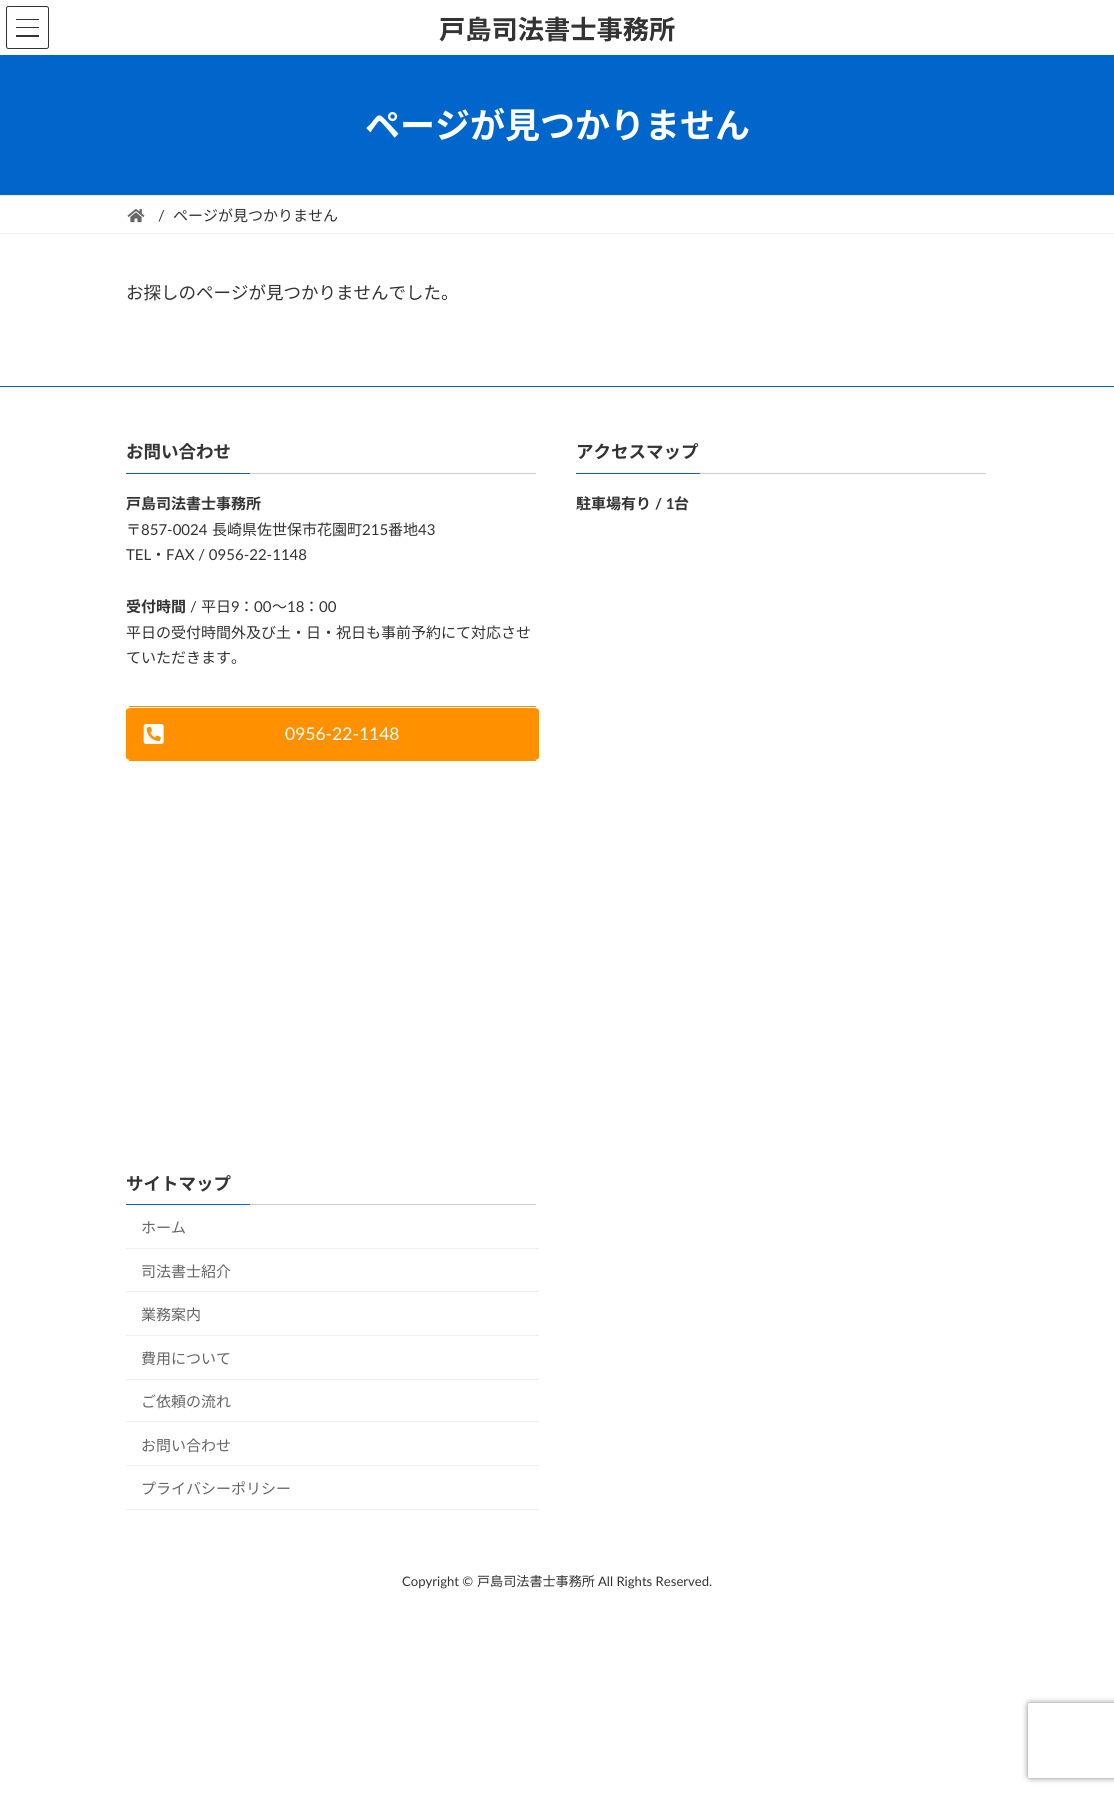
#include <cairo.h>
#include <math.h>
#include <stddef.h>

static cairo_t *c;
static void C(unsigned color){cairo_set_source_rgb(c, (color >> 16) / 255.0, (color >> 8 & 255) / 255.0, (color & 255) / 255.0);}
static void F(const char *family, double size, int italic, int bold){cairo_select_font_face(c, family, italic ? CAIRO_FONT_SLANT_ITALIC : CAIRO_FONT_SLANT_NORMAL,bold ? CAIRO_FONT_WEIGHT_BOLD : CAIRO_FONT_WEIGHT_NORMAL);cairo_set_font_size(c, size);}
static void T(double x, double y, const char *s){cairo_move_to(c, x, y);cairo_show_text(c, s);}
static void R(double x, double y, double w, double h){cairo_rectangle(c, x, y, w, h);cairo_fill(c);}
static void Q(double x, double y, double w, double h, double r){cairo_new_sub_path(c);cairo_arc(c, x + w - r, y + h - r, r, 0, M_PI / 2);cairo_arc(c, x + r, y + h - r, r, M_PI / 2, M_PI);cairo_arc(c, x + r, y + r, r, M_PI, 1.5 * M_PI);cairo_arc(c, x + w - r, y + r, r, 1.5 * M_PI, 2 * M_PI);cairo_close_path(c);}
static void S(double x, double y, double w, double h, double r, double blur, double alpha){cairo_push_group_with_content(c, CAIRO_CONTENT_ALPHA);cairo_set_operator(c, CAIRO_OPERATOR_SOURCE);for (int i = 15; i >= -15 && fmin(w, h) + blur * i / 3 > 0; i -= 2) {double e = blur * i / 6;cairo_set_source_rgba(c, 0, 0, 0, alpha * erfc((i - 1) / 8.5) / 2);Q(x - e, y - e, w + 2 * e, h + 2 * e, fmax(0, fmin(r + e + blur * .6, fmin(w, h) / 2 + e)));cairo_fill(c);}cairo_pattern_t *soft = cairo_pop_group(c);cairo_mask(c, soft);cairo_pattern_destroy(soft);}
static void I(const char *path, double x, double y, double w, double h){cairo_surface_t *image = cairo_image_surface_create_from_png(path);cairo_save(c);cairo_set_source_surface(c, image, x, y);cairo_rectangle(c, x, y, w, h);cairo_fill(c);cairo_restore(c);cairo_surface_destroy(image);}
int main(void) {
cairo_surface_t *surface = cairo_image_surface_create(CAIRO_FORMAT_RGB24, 1114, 1795);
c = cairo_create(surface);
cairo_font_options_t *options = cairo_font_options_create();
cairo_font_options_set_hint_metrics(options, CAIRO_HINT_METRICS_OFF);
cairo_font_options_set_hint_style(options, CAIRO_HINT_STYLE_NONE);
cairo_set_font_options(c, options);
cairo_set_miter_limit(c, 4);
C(0xffffff);
cairo_paint(c);
C(0x333333);
R(16,19,23,1);
R(16,27,23,1);
R(16,35,23,2);
Q(6.5,6.5,42,42,2);
cairo_set_line_width(c,1);
cairo_stroke(c);
F("Noto Sans JP",26.25,0,1);
T(439,39,"戸島司法書士事務所");
C(0x0066cc);
R(0,55,1114,140);
F("Noto Sans JP",35,0,1);
C(0xffffff);
T(365,138,"ページが見つかりません");
C(0xf0f0f0);
R(0,195,1114,1);
R(0,233,1114,1);
I("1.png",127,209,18,14);
F("Lato",15,0,0);
C(0x333333);
T(158,221,"/");
F("Noto Sans JP",15,0,0);
T(173,221,"ページが見つかりません");
F("Noto Sans JP",17.5,0,0);
T(126,299,"お探しのページが見つかりませんでした。");
C(0x0066cc);
R(0,386,1114,1);
C(0xcccccc);
R(250,473,286,1);
F("Noto Sans JP",17.5,0,1);
C(0x333333);
T(126,458,"お問い合わせ");
C(0x0066cc);
R(126,473,124,1);
F("Noto Sans JP",15,0,1);
C(0x333333);
T(126,509,"戸島司法書士事務所");
F("Noto Sans JP",15,0,0);
T(126,535,"〒");
F("Lato",15,0,0);
T(141,535,"857-0024");
F("Noto Sans JP",15,0,0);
T(212,535,"長崎県佐世保市花園町");
F("Lato",15,0,0);
T(362,535,"215");
F("Noto Sans JP",15,0,0);
T(388,535,"番地");
F("Lato",15,0,0);
T(418,535,"43");
T(126,560,"TEL");
F("Noto Sans JP",15,0,0);
T(151,560,"・");
F("Lato",15,0,0);
T(166,560,"FAX / 0956-22-1148");
F("Noto Sans JP",15,0,1);
T(126,612,"受付時間");
F("Lato",15,0,0);
T(190,612,"/");
F("Noto Sans JP",15,0,0);
T(201,612,"平日");
F("Lato",15,0,0);
T(231,612,"9");
F("Noto Sans JP",15,0,0);
T(239,612,"：");
F("Lato",15,0,0);
T(254,612,"00");
F("Noto Sans JP",15,0,0);
T(272,612,"～");
F("Lato",15,0,0);
T(287,612,"18");
F("Noto Sans JP",15,0,0);
T(304,612,"：");
F("Lato",15,0,0);
T(319,612,"00");
F("Noto Sans JP",15,0,0);
T(126,638,"平日の受付時間外及び土・日・祝日も事前予約にて対応させ");
T(126,663,"ていただきます。");
C(0xff9000);
cairo_new_path(c);
cairo_move_to(c,131,708);
cairo_line_to(c,534,708);
cairo_curve_to(c,537,708,539,709,539,711);
cairo_line_to(c,539,757);
cairo_curve_to(c,539,759,537,760,534,760);
cairo_line_to(c,131,760);
cairo_curve_to(c,128,760,126,759,126,757);
cairo_line_to(c,126,711);
cairo_curve_to(c,126,709,128,708,131,708);
cairo_close_path(c);
cairo_fill(c);
R(129,706,407,1);
R(129,760,407,1);
I("2.png",143,724,21,20);
F("Lato",17.5,0,0);
C(0xffffff);
T(285,740,"0956-22-1148");
C(0xcccccc);
R(700,473,286,1);
F("Noto Sans JP",17.5,0,1);
C(0x333333);
T(576,458,"アクセスマップ");
C(0x0066cc);
R(576,473,124,1);
F("Noto Sans JP",15,0,1);
C(0x333333);
T(576,509,"駐車場有り");
F("Lato",15,0,1);
T(655,509,"/ 1");
F("Noto Sans JP",15,0,1);
T(674,509,"台");
C(0xcccccc);
R(250,1204,286,1);
F("Noto Sans JP",17.5,0,1);
C(0x333333);
T(126,1190,"サイトマップ");
C(0x0066cc);
R(126,1204,124,1);
C(0xf0f0f0);
R(126,1248,413,1);
F("Noto Sans JP",15,0,0);
C(0x666666);
T(141,1233,"ホーム");
C(0xf0f0f0);
R(126,1291,413,1);
C(0x666666);
T(141,1277,"司法書士紹介");
C(0xf0f0f0);
R(126,1335,413,1);
C(0x666666);
T(141,1320,"業務案内");
C(0xf0f0f0);
R(126,1379,413,1);
C(0x666666);
T(141,1364,"費用について");
C(0xf0f0f0);
R(126,1421,413,1);
C(0x666666);
T(141,1407,"ご依頼の流れ");
C(0xf0f0f0);
R(126,1465,413,1);
C(0x666666);
T(141,1451,"お問い合わせ");
C(0xf0f0f0);
R(126,1509,413,1);
C(0x666666);
T(141,1494,"プライバシーポリシー");
F("Lato",13.1,0,0);
C(0x333333);
T(402,1586,"Copyright ©");
F("Noto Sans JP",13.1,0,0);
T(477,1586,"戸島司法書士事務所");
F("Lato",13.1,0,0);
T(598,1586,"All Rights Reserved.");
cairo_save(c);
cairo_set_fill_rule(c,CAIRO_FILL_RULE_EVEN_ODD);
cairo_new_path(c);
cairo_move_to(c,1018,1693);
cairo_line_to(c,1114,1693);
cairo_line_to(c,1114,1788);
cairo_line_to(c,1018,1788);
cairo_close_path(c);
cairo_move_to(c,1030.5,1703);
cairo_line_to(c,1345.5,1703);
cairo_curve_to(c,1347,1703,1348,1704,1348,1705.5);
cairo_line_to(c,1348,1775.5);
cairo_curve_to(c,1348,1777,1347,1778,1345.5,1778);
cairo_line_to(c,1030.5,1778);
cairo_curve_to(c,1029,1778,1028,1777,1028,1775.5);
cairo_line_to(c,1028,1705.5);
cairo_curve_to(c,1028,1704,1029,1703,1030.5,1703);
cairo_close_path(c);
cairo_clip(c);
C(0x808080);
S(1028,1703,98,75,2.5,3,1);
cairo_restore(c);
cairo_surface_write_to_png(surface, "o.png");
cairo_font_options_destroy(options);
cairo_destroy(c);
cairo_surface_destroy(surface);
return 0;
}
